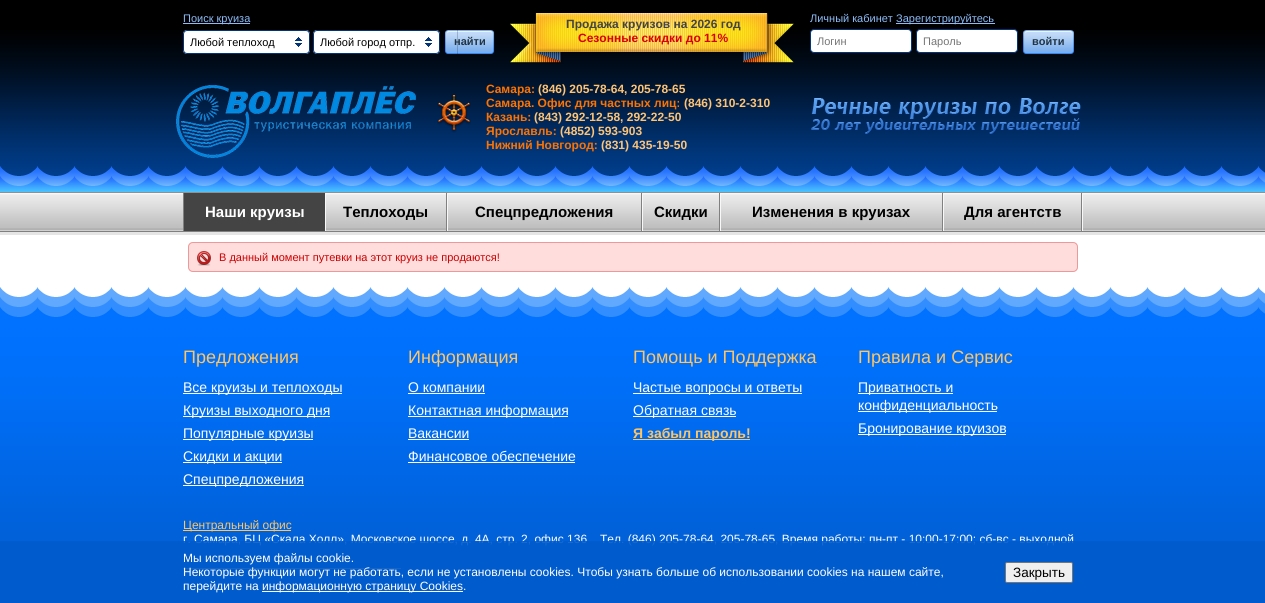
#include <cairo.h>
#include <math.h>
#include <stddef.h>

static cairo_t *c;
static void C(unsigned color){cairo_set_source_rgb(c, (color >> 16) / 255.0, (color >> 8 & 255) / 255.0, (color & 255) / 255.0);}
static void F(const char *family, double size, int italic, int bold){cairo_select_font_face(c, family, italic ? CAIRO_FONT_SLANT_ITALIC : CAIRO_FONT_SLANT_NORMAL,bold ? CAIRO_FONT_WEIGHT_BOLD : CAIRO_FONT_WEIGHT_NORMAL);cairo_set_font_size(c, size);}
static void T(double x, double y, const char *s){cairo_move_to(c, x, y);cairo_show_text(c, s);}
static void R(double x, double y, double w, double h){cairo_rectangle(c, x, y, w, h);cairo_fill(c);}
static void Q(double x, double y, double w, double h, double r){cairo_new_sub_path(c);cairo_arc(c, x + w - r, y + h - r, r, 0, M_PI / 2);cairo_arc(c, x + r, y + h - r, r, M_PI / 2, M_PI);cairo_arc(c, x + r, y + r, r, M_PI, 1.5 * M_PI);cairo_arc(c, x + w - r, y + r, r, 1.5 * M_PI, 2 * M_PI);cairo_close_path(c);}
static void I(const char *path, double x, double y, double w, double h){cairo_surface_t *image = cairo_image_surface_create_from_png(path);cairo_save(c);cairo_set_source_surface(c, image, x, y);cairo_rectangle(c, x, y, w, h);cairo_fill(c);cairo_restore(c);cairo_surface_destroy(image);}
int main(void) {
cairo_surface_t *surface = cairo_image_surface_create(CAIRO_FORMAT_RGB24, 1265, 603);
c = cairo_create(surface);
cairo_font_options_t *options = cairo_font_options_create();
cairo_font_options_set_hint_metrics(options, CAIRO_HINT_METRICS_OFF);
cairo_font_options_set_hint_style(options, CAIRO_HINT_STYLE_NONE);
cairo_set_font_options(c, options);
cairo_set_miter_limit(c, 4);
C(0xffffff);
cairo_paint(c);
I("1.png",0,0,1265,235);
C(0x8cbcf7);
R(183,23,67,1);
F("Liberation Sans",11,0,0);
T(183,22,"Поиск круиза");
C(0xffffff);
Q(183,30,127,24,4);
cairo_fill(c);
I("2.png",295,37,7,10);
Q(183.5,30.5,126,23,3.5);
C(0x003579);
cairo_set_line_width(c,1);
cairo_stroke(c);
C(0x000000);
T(190,46,"Любой теплоход");
C(0xffffff);
Q(313,30,127,24,4);
cairo_fill(c);
I("2.png",425,37,7,10);
Q(313.5,30.5,126,23,3.5);
C(0x003579);
cairo_stroke(c);
C(0x000000);
T(320,46,"Любой город отпр.");
I("3.png",458,30,37,25);
I("4.png",445,30,13,25);
F("Liberation Sans",11,0,1);
C(0x223344);
T(454,45,"найти");
I("5.png",510,13,284,51);
F("Liberation Sans",12,0,1);
C(0x444444);
T(566,28,"Продажа круизов на 2026 год");
C(0xdb0000);
T(578,42,"Сезонные скидки до 11%");
F("Liberation Sans",11,0,0);
C(0x8cbcf7);
T(810,22,"Личный кабинет");
R(896,23,99,1);
T(896,22,"Зарегистрируйтесь");
C(0xffffff);
Q(810.5,29.5,101,23,3.5);
cairo_fill_preserve(c);
C(0x003579);
cairo_stroke(c);
C(0x757575);
T(817,45,"Логин");
C(0xffffff);
Q(916.5,29.5,101,23,3.5);
cairo_fill_preserve(c);
C(0x003579);
cairo_stroke(c);
C(0x757575);
T(923,45,"Пароль");
I("6.png",1036,30,38,25);
I("7.png",1023,30,13,25);
F("Liberation Sans",11,0,1);
C(0x223344);
T(1032,45,"войти");
I("8.png",176,85,240,73);
I("9.png",437,95,34,38);
F("Liberation Sans",12,0,1);
C(0xfe7300);
T(486,93,"Самара:");
C(0xffc374);
T(538,93,"(846) 205-78-64, 205-78-65");
C(0xfe7300);
T(486,107,"Самара. Офис для частных лиц:");
C(0xffc374);
T(684,107,"(846) 310-2-310");
C(0xfe7300);
T(486,121,"Казань:");
C(0xffc374);
T(534,121,"(843) 292-12-58, 292-22-50");
C(0xfe7300);
T(486,135,"Ярославль:");
C(0xffc374);
T(560,135,"(4852) 593-903");
C(0xfe7300);
T(486,149,"Нижний Новгород:");
C(0xffc374);
T(601,149,"(831) 435-19-50");
I("10.png",811,97,271,37);
C(0xf8f8f8);
R(1082,193,1,38);
C(0x808080);
R(183,193,1,38);
C(0x444444);
R(184,193,141,38);
F("Liberation Sans",15,0,1);
C(0xffffff);
T(205,217,"Наши круизы");
C(0x808080);
R(446,193,1,38);
C(0xf8f8f8);
R(325,193,1,38);
C(0x000000);
T(343,217,"Теплоходы");
C(0x808080);
R(641,193,1,38);
C(0xf8f8f8);
R(447,193,1,38);
C(0x000000);
T(475,217,"Спецпредложения");
C(0x808080);
R(719,193,1,38);
C(0xf8f8f8);
R(642,193,1,38);
C(0x000000);
T(654,217,"Скидки");
C(0x808080);
R(942,193,1,38);
C(0xf8f8f8);
R(720,193,1,38);
C(0x000000);
T(752,217,"Изменения в круизах");
C(0x808080);
R(1081,193,1,38);
C(0xf8f8f8);
R(943,193,1,38);
C(0x000000);
T(964,217,"Для агентств");
C(0xffdddd);
Q(188,242,890,30,5);
cairo_fill(c);
I("11.png",197,251,14,15);
Q(188.5,242.5,889,29,4.5);
C(0xee9999);
cairo_stroke(c);
F("Liberation Sans",11,0,0);
C(0xcc0000);
T(219,261,"В данный момент путевки на этот круиз не продаются!");
I("12.png",0,287,1265,316);
F("Liberation Sans",18,0,0);
C(0xffc563);
T(183,363,"Предложения");
C(0xffffff);
R(183,393,159,1);
F("Liberation Sans",14,0,0);
T(183,392,"Все круизы и теплоходы");
R(183,416,147,1);
T(183,415,"Круизы выходного дня");
R(183,439,130,1);
T(183,438,"Популярные круизы");
R(183,462,99,1);
T(183,461,"Скидки и акции");
R(183,485,121,1);
T(183,484,"Спецпредложения");
F("Liberation Sans",18,0,0);
C(0xffc563);
T(408,363,"Информация");
F("Liberation Sans",14,0,0);
C(0xffffff);
T(408,392,"О компании");
R(408,393,77,1);
R(408,416,160,1);
T(408,415,"Контактная информация");
T(408,438,"Вакансии");
R(408,439,61,1);
T(408,461,"Финансовое обеспечение");
R(408,462,167,1);
F("Liberation Sans",18,0,0);
C(0xffc563);
T(633,363,"Помощь и Поддержка");
C(0xffffff);
R(633,393,169,1);
F("Liberation Sans",14,0,0);
T(633,392,"Частые вопросы и ответы");
R(633,416,103,1);
T(633,415,"Обратная связь");
C(0xffc563);
R(633,439,117,1);
F("Liberation Sans",14,0,1);
T(633,438,"Я забыл пароль!");
F("Liberation Sans",18,0,0);
T(858,363,"Правила и Сервис");
C(0xffffff);
R(858,393,95,1);
F("Liberation Sans",14,0,0);
T(858,392,"Приватность и");
R(858,411,139,1);
T(858,410,"конфиденциальность");
R(858,434,148,1);
T(858,433,"Бронирование круизов");
C(0xffc563);
R(183,530,108,1);
F("Liberation Sans",12,0,0);
T(183,529,"Центральный офис");
C(0xffffff);
T(183,543,"г. Самара, БЦ «Скала Холл», Московское шоссе, д. 4А, стр. 2, офис 136");
T(600,543,"Тел. (846) 205-78-64, 205-78-65, Время работы: пн-пт - 10:00-17:00; сб-вс - выходной");
C(0xffc563);
R(183,568,218,1);
cairo_set_source_rgba(c,0,0.357,0.8,0.9);
R(0,541,1265,59);
C(0xffffff);
T(183,562,"Мы используем файлы cookie.");
T(183,576,"Некоторые функции могут не работать, если не установлены cookies. Чтобы узнать больше об использовании cookies на нашем сайте,");
T(183,590,"перейдите на");
R(262,591,201,1);
T(262,590,"информационную страницу Cookies.");
C(0xefefef);
Q(1005.5,562.5,67,20,1.5);
cairo_fill_preserve(c);
C(0x767676);
cairo_stroke(c);
F("Liberation Sans",13.5,0,0);
C(0x000000);
T(1013,577,"Закрыть");
cairo_surface_write_to_png(surface, "o.png");
cairo_font_options_destroy(options);
cairo_destroy(c);
cairo_surface_destroy(surface);
return 0;
}
